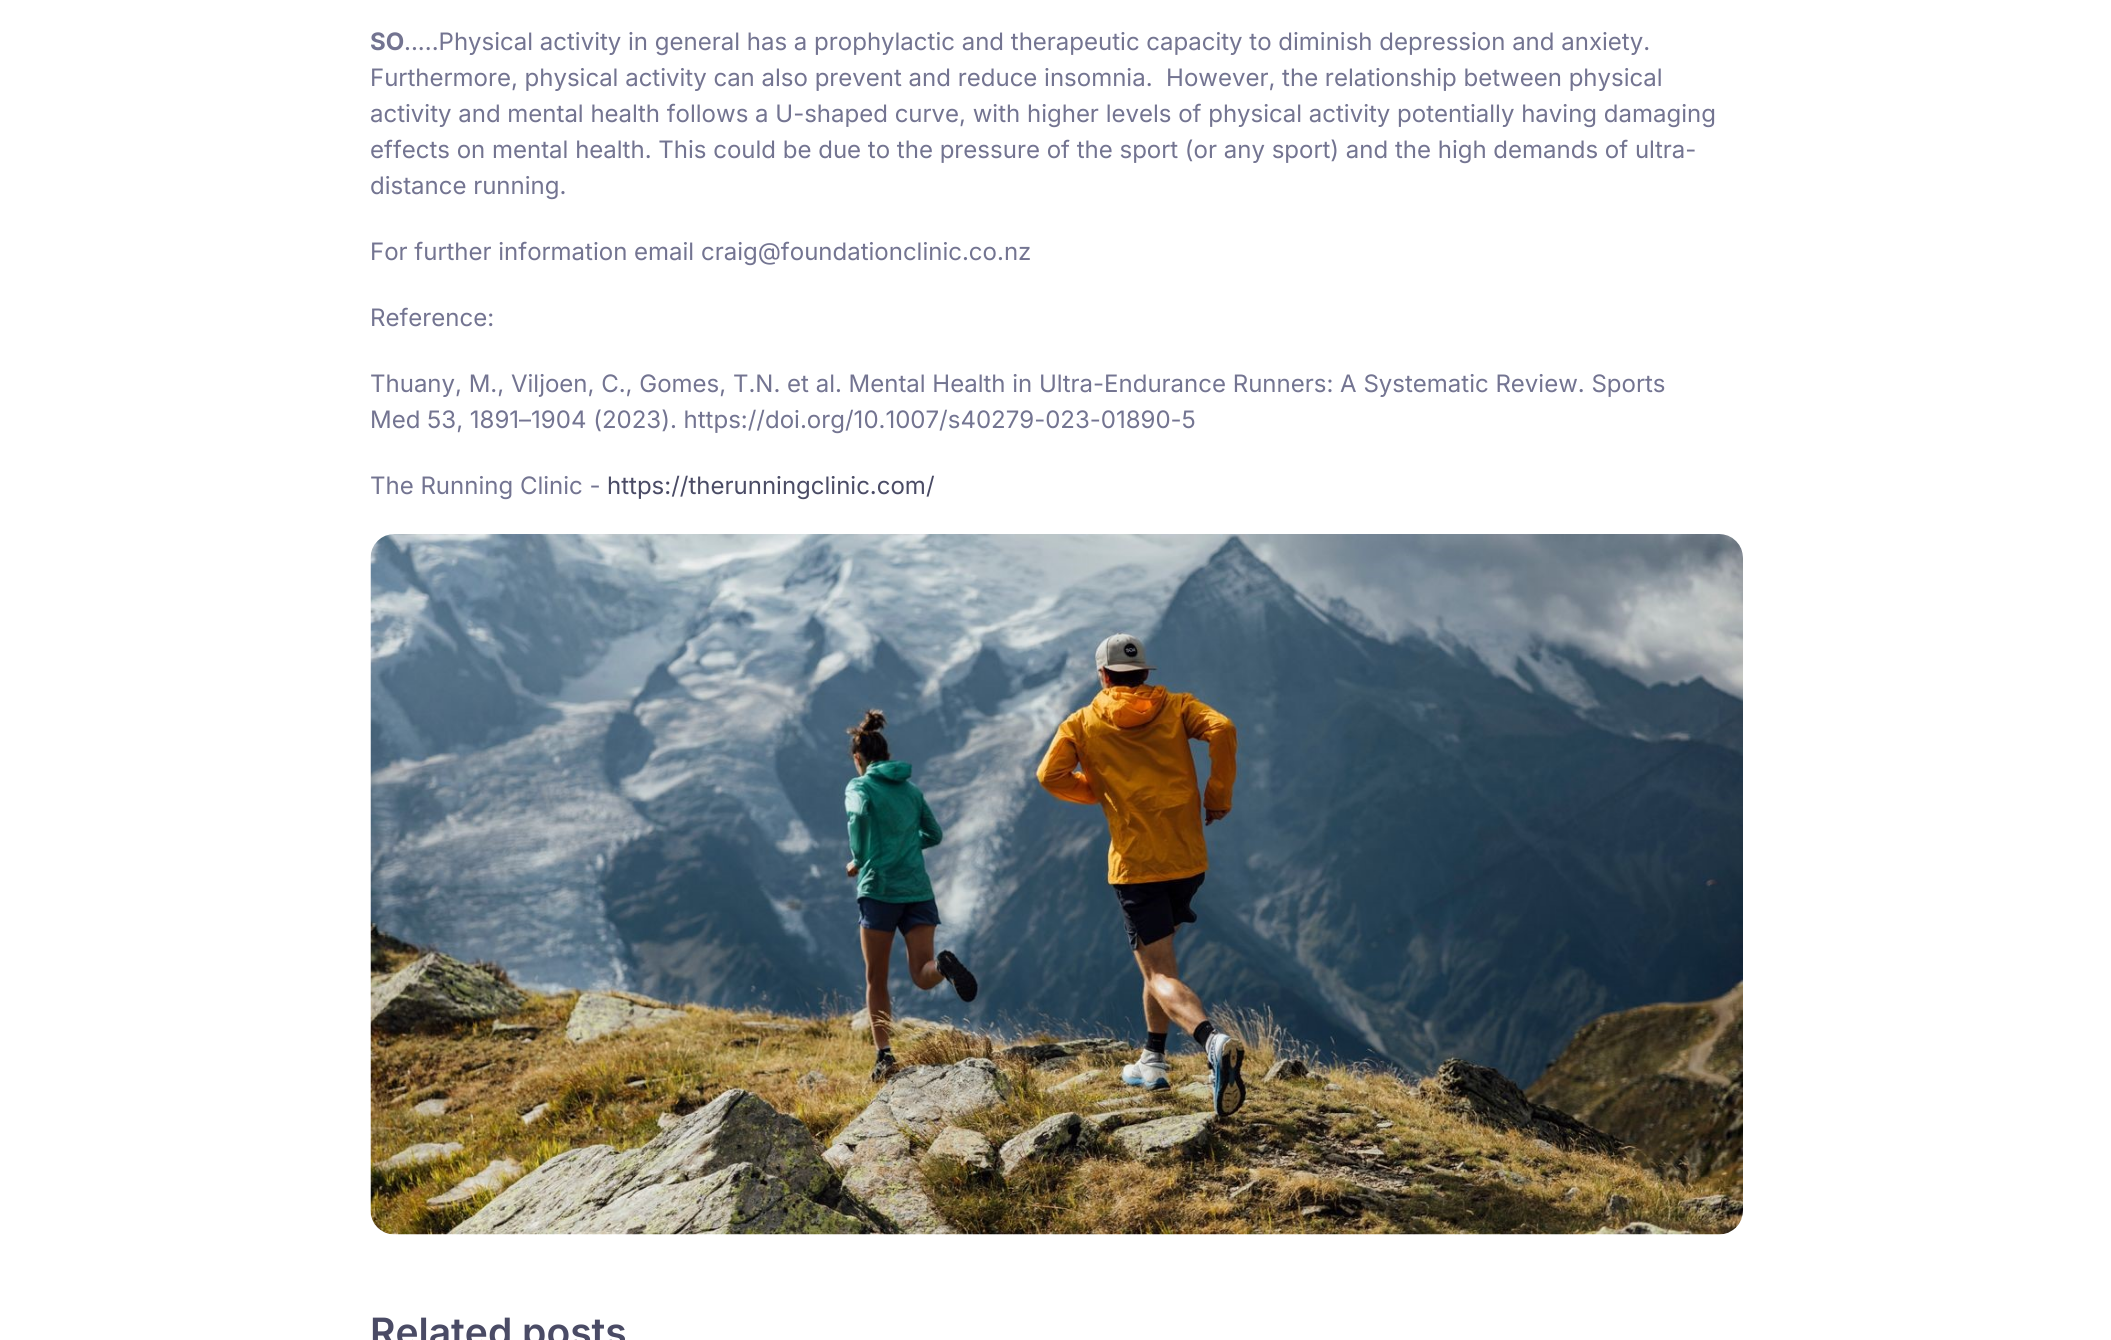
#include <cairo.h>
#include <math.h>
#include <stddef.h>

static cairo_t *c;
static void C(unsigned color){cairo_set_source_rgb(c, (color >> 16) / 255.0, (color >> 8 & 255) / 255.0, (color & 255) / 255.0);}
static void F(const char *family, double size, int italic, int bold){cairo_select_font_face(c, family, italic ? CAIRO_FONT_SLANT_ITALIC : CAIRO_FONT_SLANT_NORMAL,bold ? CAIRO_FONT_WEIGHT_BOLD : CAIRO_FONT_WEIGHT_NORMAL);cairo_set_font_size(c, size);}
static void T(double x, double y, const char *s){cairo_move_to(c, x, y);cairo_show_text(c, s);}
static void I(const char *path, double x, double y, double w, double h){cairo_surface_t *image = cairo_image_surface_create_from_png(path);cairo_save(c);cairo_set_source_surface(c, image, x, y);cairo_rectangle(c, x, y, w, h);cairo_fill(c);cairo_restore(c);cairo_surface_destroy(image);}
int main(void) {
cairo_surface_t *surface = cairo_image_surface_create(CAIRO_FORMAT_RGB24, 2111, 1340);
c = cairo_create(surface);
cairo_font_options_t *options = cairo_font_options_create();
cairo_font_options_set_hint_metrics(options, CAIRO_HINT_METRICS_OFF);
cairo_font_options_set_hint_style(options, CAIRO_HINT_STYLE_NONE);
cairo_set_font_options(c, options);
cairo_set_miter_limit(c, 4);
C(0xffffff);
cairo_paint(c);
F("Inter",24,0,1);
C(0x737491);
T(370,50,"SO");
F("Inter",24,0,0);
T(404,50,".....Physical activity in general has a prophylactic and therapeutic capacity to diminish depression and anxiety.");
T(370,86,"Furthermore, physical activity can also prevent and reduce insomnia.  However, the relationship between physical");
T(370,122,"activity and mental health follows a U-shaped curve, with higher levels of physical activity potentially having damaging");
T(370,158,"effects on mental health. This could be due to the pressure of the sport (or any sport) and the high demands of ultra-");
T(370,194,"distance running.");
T(370,260,"For further information email craig@foundationclinic.co.nz");
T(370,326,"Reference:");
T(370,392,"Thuany, M., Viljoen, C., Gomes, T.N. et al. Mental Health in Ultra-Endurance Runners: A Systematic Review. Sports");
T(370,428,"Med 53, 1891–1904 (2023). https://doi.org/10.1007/s40279-023-01890-5");
T(370,494,"The Running Clinic -");
C(0x4a4b65);
T(607,494,"https://therunningclinic.com/");
I("1.png",370,534,1373,701);
F("Inter SemiBold",39,0,0);
T(370,1346,"Related posts");
cairo_surface_write_to_png(surface, "o.png");
cairo_font_options_destroy(options);
cairo_destroy(c);
cairo_surface_destroy(surface);
return 0;
}
